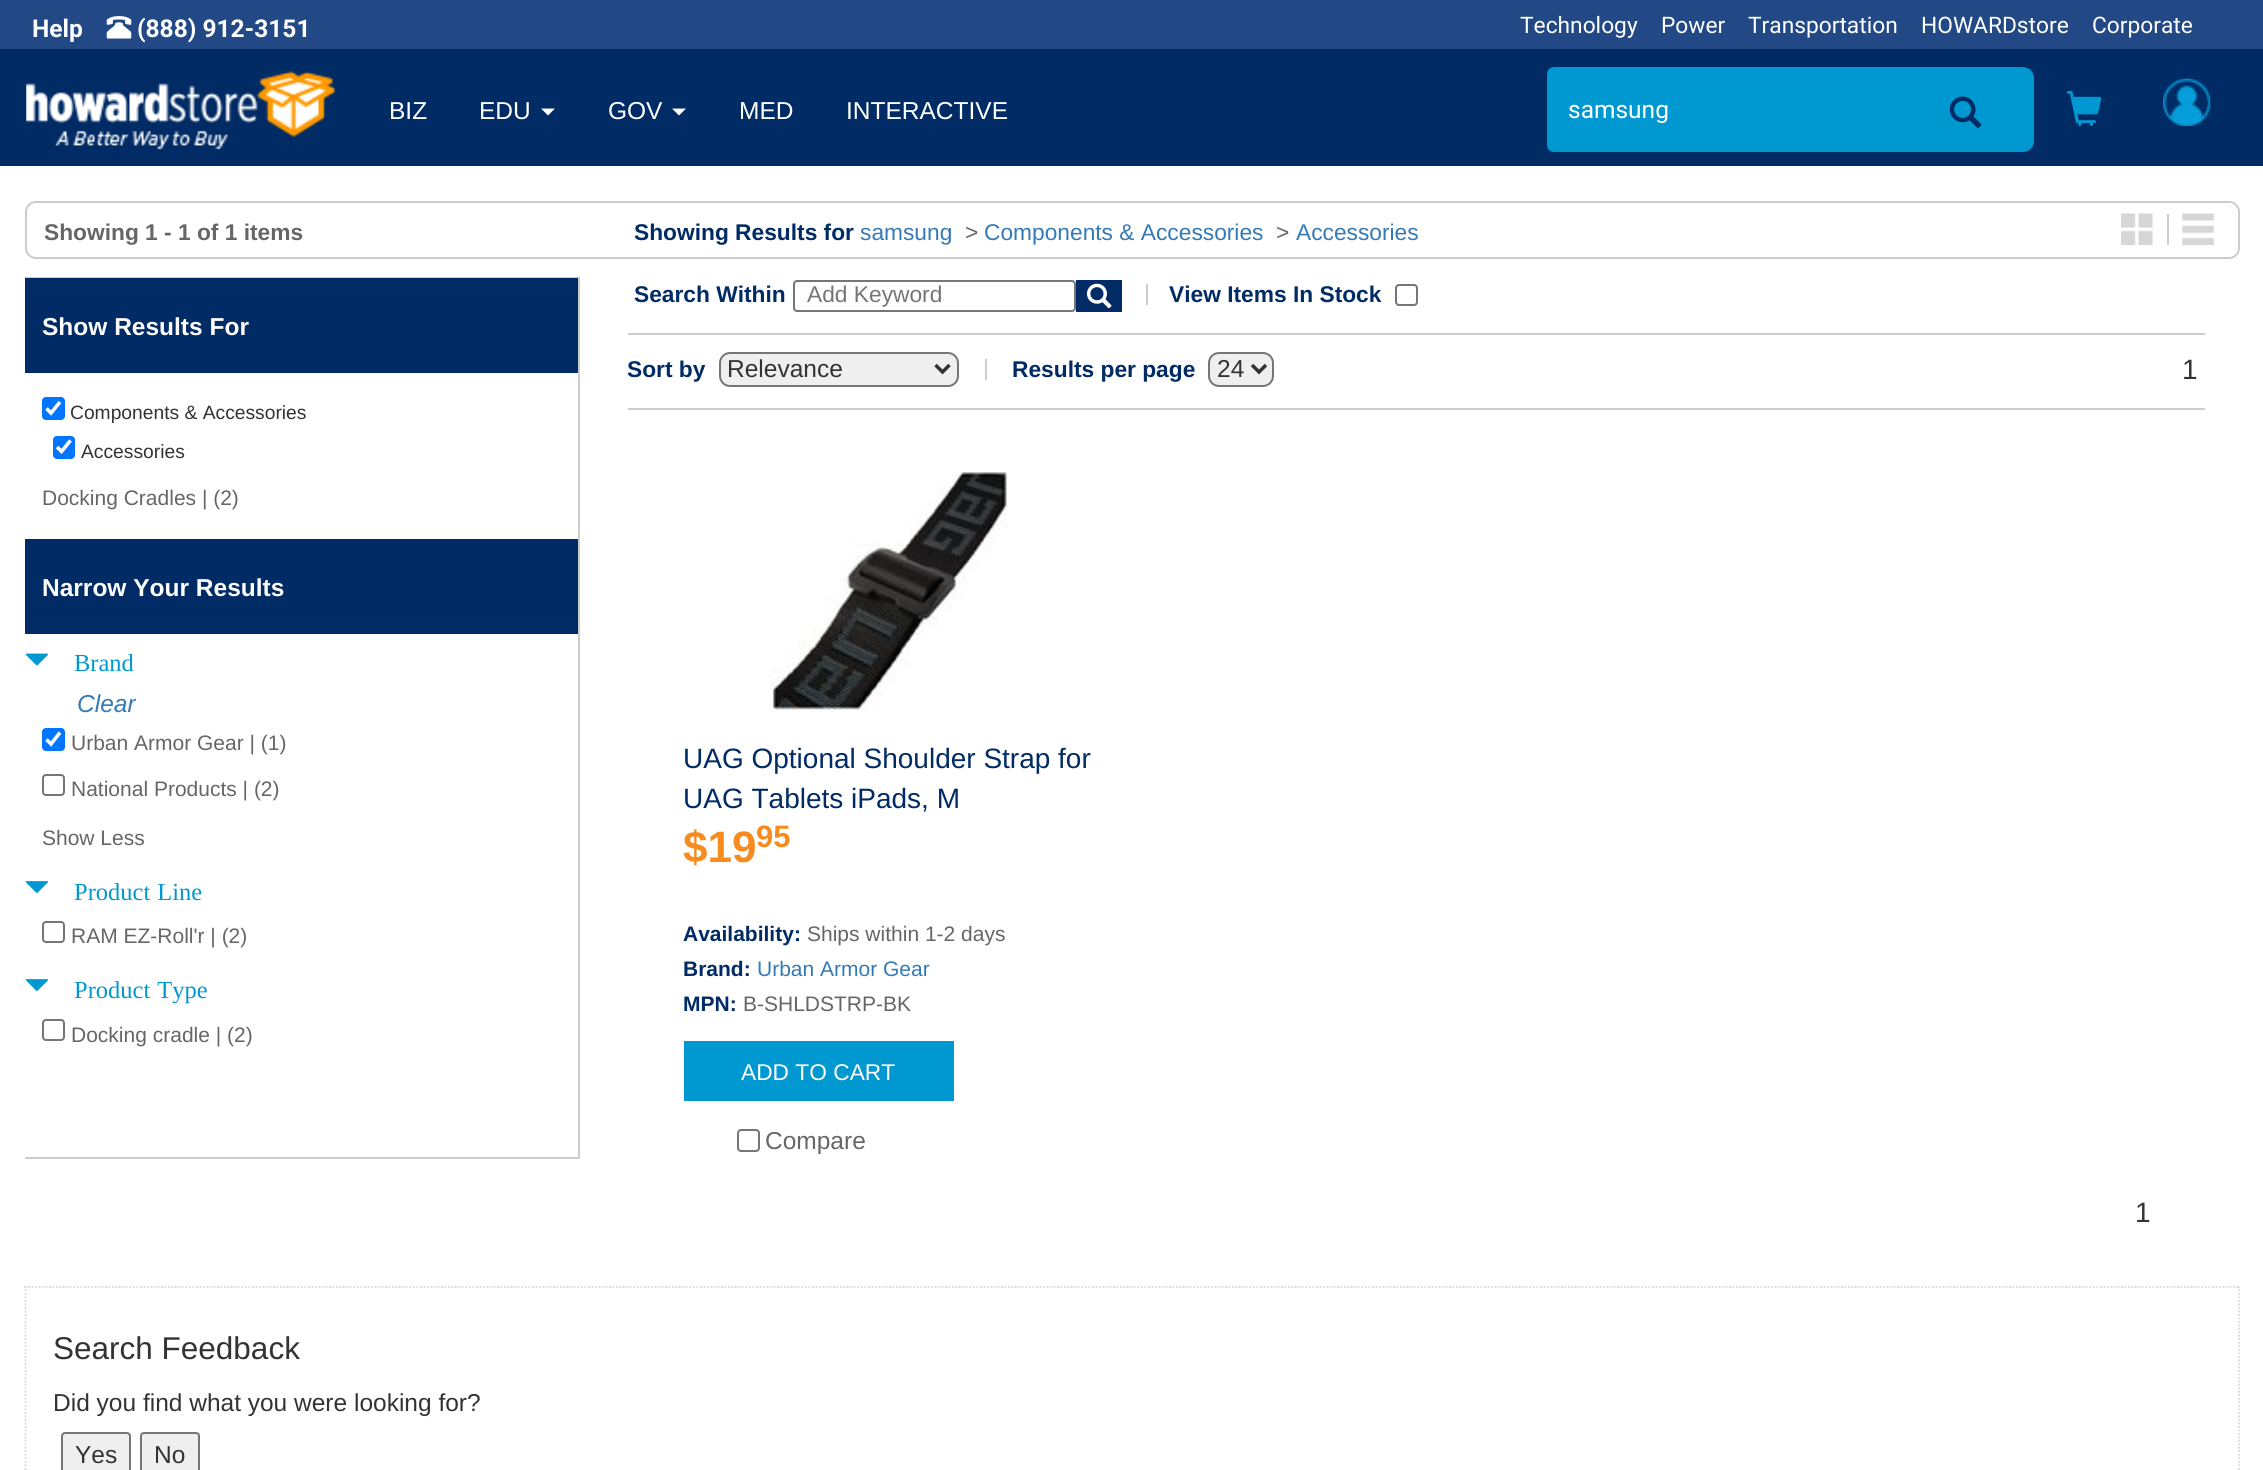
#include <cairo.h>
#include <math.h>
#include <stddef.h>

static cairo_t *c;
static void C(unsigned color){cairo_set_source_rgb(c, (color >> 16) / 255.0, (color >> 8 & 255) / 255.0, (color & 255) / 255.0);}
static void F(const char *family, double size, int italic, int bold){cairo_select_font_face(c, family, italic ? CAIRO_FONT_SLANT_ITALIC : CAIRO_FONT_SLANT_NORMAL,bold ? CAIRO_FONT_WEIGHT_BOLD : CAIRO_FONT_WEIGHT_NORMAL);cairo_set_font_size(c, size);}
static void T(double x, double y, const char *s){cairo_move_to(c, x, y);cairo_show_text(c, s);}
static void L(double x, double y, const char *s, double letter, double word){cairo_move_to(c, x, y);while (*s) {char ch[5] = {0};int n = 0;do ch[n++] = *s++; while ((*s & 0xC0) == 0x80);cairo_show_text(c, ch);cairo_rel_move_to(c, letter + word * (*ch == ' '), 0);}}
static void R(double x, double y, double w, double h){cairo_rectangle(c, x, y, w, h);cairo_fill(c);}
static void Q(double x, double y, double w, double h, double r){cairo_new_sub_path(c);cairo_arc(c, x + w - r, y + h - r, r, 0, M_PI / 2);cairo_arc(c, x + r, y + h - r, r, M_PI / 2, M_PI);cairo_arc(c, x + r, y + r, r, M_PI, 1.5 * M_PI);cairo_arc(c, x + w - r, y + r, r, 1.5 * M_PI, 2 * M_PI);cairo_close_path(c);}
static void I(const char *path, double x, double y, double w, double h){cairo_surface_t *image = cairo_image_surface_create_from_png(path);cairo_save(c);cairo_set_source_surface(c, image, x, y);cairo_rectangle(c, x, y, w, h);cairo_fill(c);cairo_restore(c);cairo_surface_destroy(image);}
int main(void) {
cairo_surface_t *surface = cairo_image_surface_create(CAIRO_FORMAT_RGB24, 2263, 1470);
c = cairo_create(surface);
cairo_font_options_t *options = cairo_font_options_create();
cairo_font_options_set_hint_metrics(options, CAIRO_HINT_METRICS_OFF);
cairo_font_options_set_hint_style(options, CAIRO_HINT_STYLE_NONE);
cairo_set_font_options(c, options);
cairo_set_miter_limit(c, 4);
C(0xffffff);
cairo_paint(c);
C(0x224985);
R(0,0,2263,49);
F("Roboto",24.5,0,1);
C(0xffffff);
T(32,37,"Help");
I("1.png",106,16,26,23);
T(137,37,"(888) 912-3151");
F("Roboto",22.75,0,0);
T(1520,33,"Technology");
T(1661,33,"Power");
T(1748,33,"Transportation");
T(1921,33,"HOWARDstore");
T(2092,33,"Corporate");
C(0x002b64);
R(0,49,2263,117);
I("2.png",26,71,310,79);
F("Liberation Sans",24.5,0,0);
C(0xffffff);
T(389,119,"BIZ");
T(479,119,"EDU");
cairo_new_path(c);
cairo_move_to(c,541,108.5);
cairo_line_to(c,555,108.5);
cairo_line_to(c,548,115.5);
cairo_close_path(c);
cairo_fill(c);
T(608,119,"GOV");
cairo_new_path(c);
cairo_move_to(c,672,108.5);
cairo_line_to(c,686,108.5);
cairo_line_to(c,679,115.5);
cairo_close_path(c);
cairo_fill(c);
T(739,119,"MED");
T(846,119,"INTERACTIVE");
C(0x0098d1);
cairo_new_path(c);
cairo_move_to(c,1554,67);
cairo_line_to(c,1950,67);
cairo_line_to(c,1950,152);
cairo_line_to(c,1554,152);
cairo_curve_to(c,1550,152,1547,149,1547,145);
cairo_line_to(c,1547,74);
cairo_curve_to(c,1547,70,1550,67,1554,67);
cairo_close_path(c);
cairo_fill(c);
F("Roboto",24.5,0,0);
C(0xffffff);
T(1568,118,"samsung");
C(0x0098d1);
cairo_new_path(c);
cairo_move_to(c,1950,67);
cairo_line_to(c,2023,67);
cairo_curve_to(c,2029,67,2034,72,2034,78);
cairo_line_to(c,2034,141);
cairo_curve_to(c,2034,147,2029,152,2023,152);
cairo_line_to(c,1950,152);
cairo_close_path(c);
cairo_fill(c);
I("3.png",1949,96,33,32);
I("4.png",2067,91,35,35);
I("5.png",2163,78,48,48);
Q(26,202,2213,56,10);
C(0xcccccc);
cairo_stroke(c);
F("Liberation Sans",22.75,0,1);
C(0x666666);
T(44,240,"Showing 1 - 1 of 1 items");
C(0x002b64);
T(634,240,"Showing Results for");
F("Liberation Sans",22.75,0,0);
C(0x337ab7);
T(860,240,"samsung");
C(0x666666);
T(965,240,">");
C(0x337ab7);
T(984,240,"Components & Accessories");
C(0x666666);
T(1276,240,">");
C(0x337ab7);
T(1296,240,"Accessories");
C(0xcccccc);
R(2167,214,2,31);
I("6.png",2121,213,32,32);
I("7.png",2182,213,32,32);
R(25,277,554,1);
R(578,277,2,882);
C(0x002b64);
R(25,278,553,95);
F("Liberation Sans",24.5,0,1);
C(0xffffff);
T(42,335,"Show Results For");
C(0x0075ff);
Q(42,397,23,23,4);
cairo_fill(c);
cairo_new_path(c);
cairo_move_to(c,46.5,408.5);
cairo_line_to(c,51,413);
cairo_line_to(c,60,402);
C(0xffffff);
cairo_set_line_width(c,3.6);
cairo_stroke(c);
F("Liberation Sans",19.25,0,0);
C(0x333333);
T(70,419,"Components & Accessories");
C(0x0075ff);
Q(53,436,22,23,4);
cairo_fill(c);
cairo_new_path(c);
cairo_move_to(c,57,447);
cairo_line_to(c,61.5,451.5);
cairo_line_to(c,70.5,440.5);
C(0xffffff);
cairo_stroke(c);
C(0x333333);
T(81,458,"Accessories");
F("Liberation Sans",21,0,0);
C(0x666666);
T(42,505,"Docking Cradles | (2)");
C(0x002b64);
R(25,539,553,95);
F("Liberation Sans",24.5,0,1);
C(0xffffff);
T(42,596,"Narrow Your Results");
I("8.png",25,653,24,13);
F("Liberation Serif",24.5,0,0);
C(0x0098d1);
T(74,671,"Brand");
F("Liberation Sans",24.5,1,0);
C(0x337ab7);
T(77,712,"Clear");
C(0x0075ff);
Q(42,728,23,23,4);
cairo_fill(c);
cairo_new_path(c);
cairo_move_to(c,46.5,739.5);
cairo_line_to(c,51,744);
cairo_line_to(c,60,732.5);
C(0xffffff);
cairo_stroke(c);
F("Liberation Sans",21,0,0);
C(0x666666);
T(71,750,"Urban Armor Gear | (1)");
Q(43,775,21,20,3);
C(0x767676);
cairo_set_line_width(c,2);
cairo_stroke(c);
C(0x666666);
T(71,796,"National Products | (2)");
T(42,845,"Show Less");
I("9.png",25,881,24,12);
F("Liberation Serif",24.5,0,0);
C(0x0098d1);
L(74,900,"Product Line",0,1);
Q(43,922,21,20,3);
C(0x767676);
cairo_stroke(c);
F("Liberation Sans",21,0,0);
C(0x666666);
T(71,943,"RAM EZ-Roll'r | (2)");
I("9.png",25,979,24,12);
F("Liberation Serif",24.5,0,0);
C(0x0098d1);
L(74,998,"Product Type",0,1);
Q(43,1020,21,20,3);
C(0x767676);
cairo_stroke(c);
F("Liberation Sans",21,0,0);
C(0x666666);
T(71,1042,"Docking cradle | (2)");
F("Liberation Sans",22.75,0,1);
C(0x002b64);
T(634,302,"Search Within");
Q(794,281,281,30,3);
C(0x767676);
cairo_stroke(c);
F("Liberation Sans",22.75,0,0);
C(0x757575);
T(807,302,"Add Keyword");
C(0x002b64);
R(1076,280,46,32);
I("10.png",1086,283,26,26);
C(0xcccccc);
R(1146,284,2,21);
F("Liberation Sans",22.75,0,1);
C(0x002b64);
T(1169,302,"View Items In Stock");
Q(1396,285,21,20,3);
C(0x767676);
cairo_stroke(c);
C(0xcccccc);
R(628,333,1577,2);
R(628,408,1577,2);
C(0x002b64);
T(627,377,"Sort by");
C(0xefefef);
Q(720,353,238,33,10);
cairo_fill_preserve(c);
C(0x767676);
cairo_stroke(c);
cairo_new_path(c);
cairo_move_to(c,935.5,365);
cairo_line_to(c,942.5,372);
cairo_line_to(c,949.5,365);
C(0x333333);
cairo_set_line_width(c,3.5);
cairo_stroke(c);
F("Liberation Sans",24.5,0,0);
T(727,377,"Relevance");
C(0xcccccc);
R(985,359,2,21);
F("Liberation Sans",22.75,0,1);
C(0x002b64);
T(1012,377,"Results per page");
C(0xefefef);
Q(1209,353,64,33,10);
cairo_fill_preserve(c);
C(0x767676);
cairo_set_line_width(c,2);
cairo_stroke(c);
cairo_new_path(c);
cairo_move_to(c,1252,365);
cairo_line_to(c,1259,372);
cairo_line_to(c,1266,365);
C(0x333333);
cairo_set_line_width(c,3.5);
cairo_stroke(c);
F("Liberation Sans",24.5,0,0);
T(1217,377,"24");
F("Liberation Sans",28,0,0);
T(2182,379,"1");
I("11.png",770,472,238,239);
C(0x002b64);
T(683,768,"UAG Optional Shoulder Strap for");
T(683,808,"UAG Tablets iPads, M");
F("Liberation Sans",44,0,1);
C(0xf68b1f);
T(683,862,"$19");
F("Liberation Sans",31,0,1);
T(756,847,"95");
F("Liberation Sans",21,0,1);
C(0x002b64);
T(683,941,"Availability:");
F("Liberation Sans",21,0,0);
C(0x666666);
T(807,941,"Ships within 1-2 days");
F("Liberation Sans",21,0,1);
C(0x002b64);
T(683,976,"Brand:");
F("Liberation Sans",21,0,0);
C(0x337ab7);
T(757,976,"Urban Armor Gear");
F("Liberation Sans",21,0,1);
C(0x002b64);
T(683,1011,"MPN:");
F("Liberation Sans",21,0,0);
C(0x666666);
T(743,1011,"B-SHLDSTRP-BK");
C(0x0098d1);
R(684,1041,270,60);
F("Liberation Sans",22.75,0,0);
C(0xffffff);
T(741,1080,"ADD TO CART");
Q(738,1130,21,21,3);
C(0x767676);
cairo_set_line_width(c,2);
cairo_stroke(c);
F("Liberation Sans",24.5,0,0);
C(0x666666);
T(765,1149,"Compare");
C(0xcccccc);
R(25,1157,554,2);
F("Liberation Sans",28,0,0);
C(0x333333);
T(2135,1222,"1");
cairo_new_path(c);
cairo_move_to(c,24.5,1287);
cairo_line_to(c,2240,1287);
C(0xd7d7d7);
cairo_set_line_width(c,1.8);
cairo_set_dash(c,(double[]){1.75,1.75},2,0);
cairo_stroke(c);
cairo_new_path(c);
cairo_move_to(c,2239,1286);
cairo_line_to(c,2239,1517);
cairo_stroke(c);
cairo_new_path(c);
cairo_move_to(c,25.5,1286);
cairo_line_to(c,25.5,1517);
cairo_stroke(c);
F("Liberation Sans",31.5,0,0);
C(0x333333);
T(53,1359,"Search Feedback");
F("Liberation Sans",24.5,0,0);
T(53,1411,"Did you find what you were looking for?");
C(0xefefef);
Q(62,1433,68,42,3);
cairo_fill_preserve(c);
C(0x767676);
cairo_set_line_width(c,2);
cairo_set_dash(c,NULL,0,0);
cairo_stroke(c);
C(0x333333);
T(75,1463,"Yes");
C(0xefefef);
Q(141,1433,58,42,3);
cairo_fill_preserve(c);
C(0x767676);
cairo_stroke(c);
C(0x333333);
T(154,1463,"No");
cairo_surface_write_to_png(surface, "o.png");
cairo_font_options_destroy(options);
cairo_destroy(c);
cairo_surface_destroy(surface);
return 0;
}
